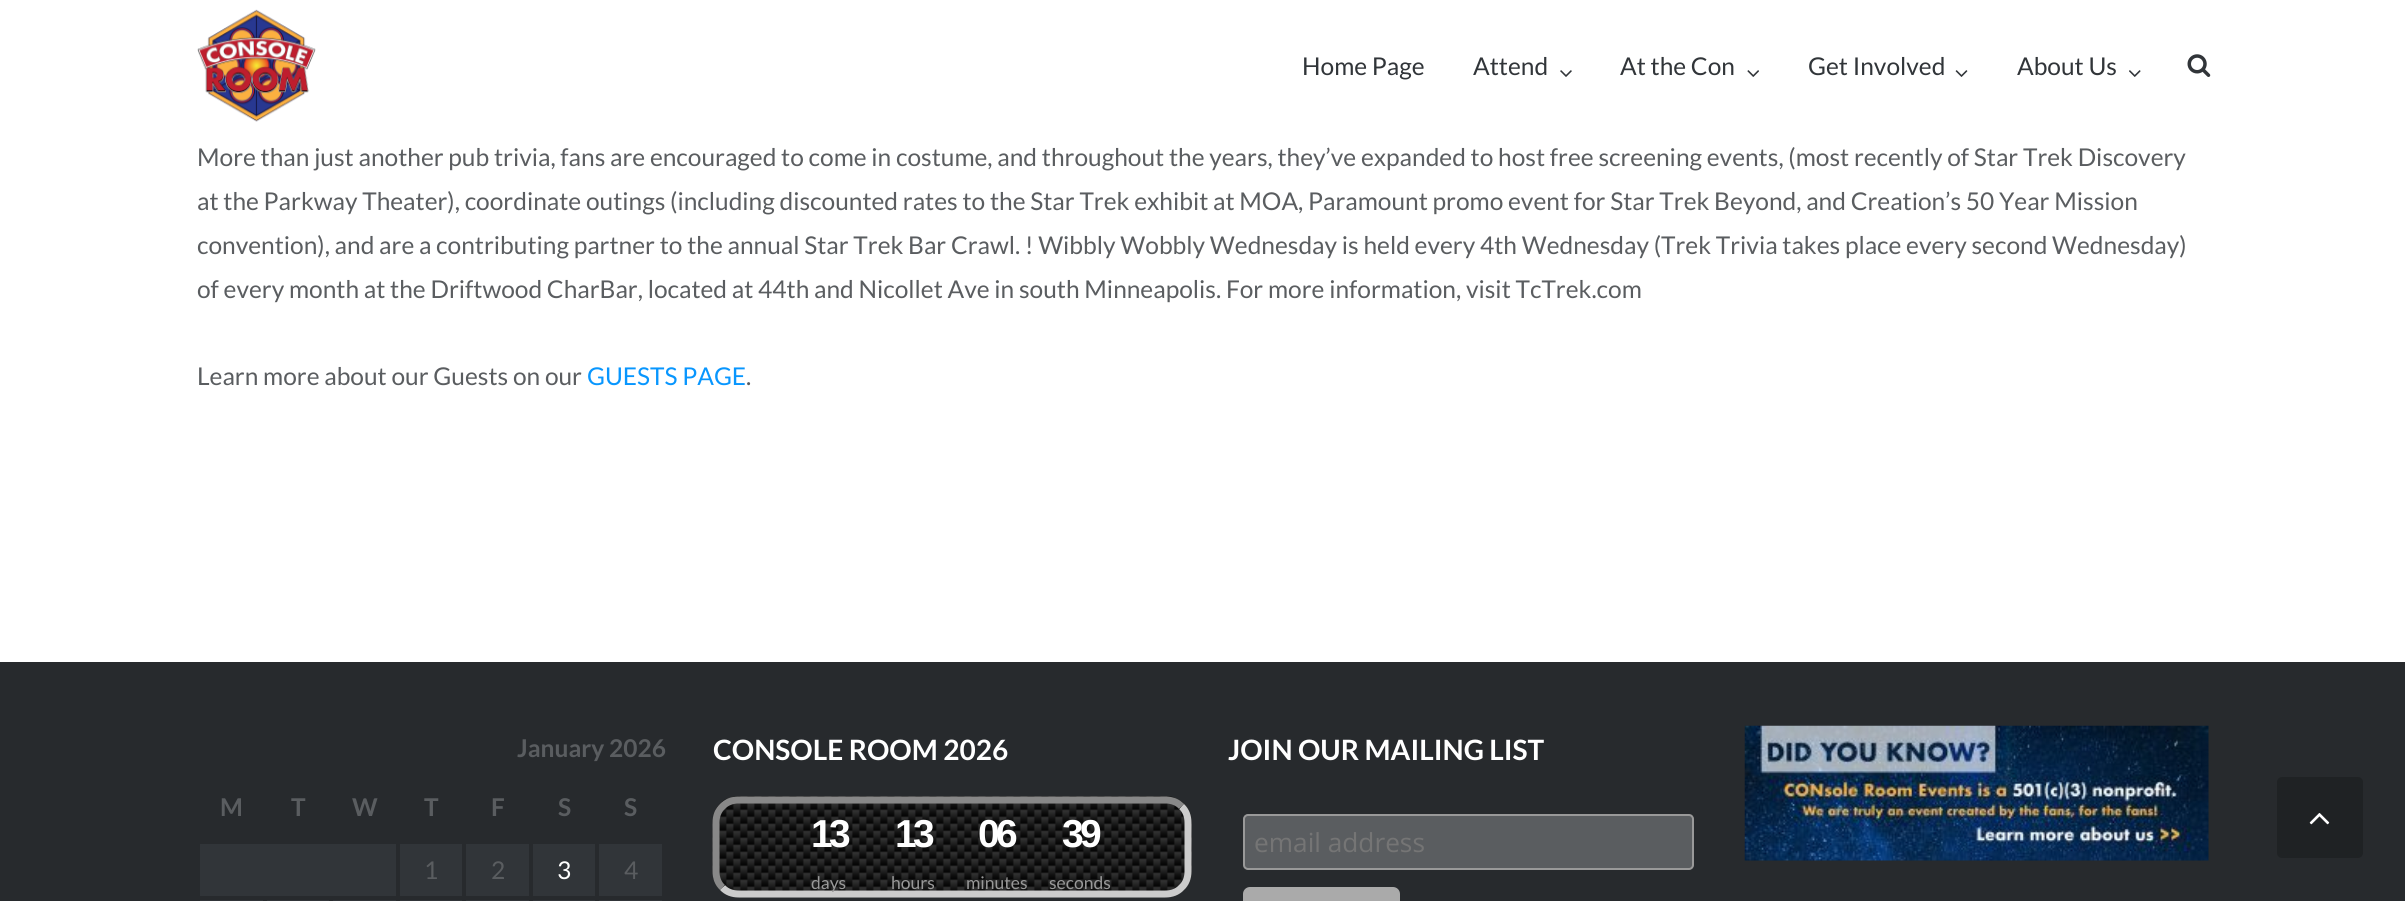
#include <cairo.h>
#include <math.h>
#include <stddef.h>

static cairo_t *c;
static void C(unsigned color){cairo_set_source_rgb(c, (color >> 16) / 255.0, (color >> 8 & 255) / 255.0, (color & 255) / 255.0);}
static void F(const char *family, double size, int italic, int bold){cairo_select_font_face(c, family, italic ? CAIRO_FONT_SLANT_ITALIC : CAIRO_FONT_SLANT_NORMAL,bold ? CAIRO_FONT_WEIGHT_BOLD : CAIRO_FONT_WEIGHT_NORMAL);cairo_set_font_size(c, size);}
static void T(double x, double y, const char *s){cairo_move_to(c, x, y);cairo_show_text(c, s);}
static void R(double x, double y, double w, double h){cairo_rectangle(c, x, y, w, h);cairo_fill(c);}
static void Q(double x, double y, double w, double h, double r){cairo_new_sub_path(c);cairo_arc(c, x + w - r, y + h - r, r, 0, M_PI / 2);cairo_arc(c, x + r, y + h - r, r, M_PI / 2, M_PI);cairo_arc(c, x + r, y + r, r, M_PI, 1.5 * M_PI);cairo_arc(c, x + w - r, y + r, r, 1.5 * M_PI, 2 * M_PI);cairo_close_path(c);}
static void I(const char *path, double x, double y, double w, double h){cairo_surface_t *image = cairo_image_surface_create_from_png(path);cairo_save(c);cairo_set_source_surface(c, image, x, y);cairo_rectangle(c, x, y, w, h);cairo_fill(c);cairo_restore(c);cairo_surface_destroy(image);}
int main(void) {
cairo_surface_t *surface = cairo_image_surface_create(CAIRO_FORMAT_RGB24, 2405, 901);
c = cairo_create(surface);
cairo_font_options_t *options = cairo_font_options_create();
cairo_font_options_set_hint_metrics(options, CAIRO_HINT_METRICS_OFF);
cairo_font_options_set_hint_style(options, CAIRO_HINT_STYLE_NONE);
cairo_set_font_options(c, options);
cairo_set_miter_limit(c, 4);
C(0xffffff);
cairo_paint(c);
I("1.png",197,9,119,113);
F("Lato",24.5,0,0);
C(0x313539);
T(1302,75,"Home Page");
T(1473,75,"Attend");
I("2.png",1560,70,12,7);
T(1620,75,"At the Con");
I("3.png",1747,70,12,7);
T(1808,75,"Get Involved");
I("4.png",1955,70,13,7);
T(2017,75,"About Us");
I("5.png",2129,70,12,7);
I("6.png",2187,54,24,23);
C(0x5a5d60);
T(197,166,"More than just another pub trivia, fans are encouraged to come in costume, and throughout the years, they’ve expanded to host free screening events, (most recently of Star Trek Discovery");
T(197,210,"at the Parkway Theater), coordinate outings (including discounted rates to the Star Trek exhibit at MOA, Paramount promo event for Star Trek Beyond, and Creation’s 50 Year Mission");
T(197,254,"convention), and are a contributing partner to the annual Star Trek Bar Crawl. ! Wibbly Wobbly Wednesday is held every 4th Wednesday (Trek Trivia takes place every second Wednesday)");
T(197,298,"of every month at the Driftwood CharBar, located at 44th and Nicollet Ave in south Minneapolis. For more information, visit TcTrek.com");
T(197,385,"Learn more about our Guests on our");
C(0x0896fe);
T(587,385,"GUESTS PAGE");
C(0x5a5d60);
T(746,385,".");
C(0x272a2d);
R(0,662,2405,239);
F("Lato",24.5,0,1);
C(0x5a5d60);
T(517,757,"January 2026");
T(220,816,"M");
T(291,816,"T");
T(352,816,"W");
T(424,816,"T");
T(491,816,"F");
T(558,816,"S");
T(624,816,"S");
C(0x313539);
R(200,844,196,52);
R(400,844,62,52);
F("Lato",24.5,0,0);
C(0x5a5d60);
T(424,879,"1");
C(0x313539);
R(466,844,63,52);
C(0x5a5d60);
T(491,879,"2");
C(0x313539);
R(533,844,62,52);
C(0xffffff);
T(557,879,"3");
C(0x313539);
R(599,844,63,52);
C(0x5a5d60);
T(624,879,"4");
C(0x313539);
R(198,900,465,1);
C(0x272a2d);
R(198,896,2,5);
R(263,896,4,5);
R(329,896,4,5);
R(396,896,4,5);
R(462,896,4,5);
R(529,896,4,5);
R(662,896,1,5);
R(595,896,4,5);
F("Lato",28,0,1);
C(0xffffff);
T(713,760,"CONSOLE ROOM 2026");
I("7.png",712,796,480,101);
cairo_new_path(c);
cairo_move_to(c,1181.5,806.5);
cairo_curve_to(c,1186,810.5,1188,816.5,1188,822.5);
cairo_line_to(c,1188,871.5);
cairo_curve_to(c,1188,877.5,1186,883.5,1181.5,887.5);
cairo_curve_to(c,1177.5,892,1171.5,894,1165.5,894);
cairo_line_to(c,738.5,894);
cairo_curve_to(c,732.5,894,726.5,892,722.5,887.5);
C(0xcccccc);
cairo_set_line_width(c,7);
cairo_stroke(c);
cairo_new_path(c);
cairo_move_to(c,722.5,887.5);
cairo_curve_to(c,718,883.5,716,877.5,716,871.5);
cairo_line_to(c,716,822.5);
cairo_curve_to(c,716,816.5,718,810.5,722.5,806.5);
cairo_curve_to(c,726.5,802,732.5,800,738.5,800);
cairo_line_to(c,1165.5,800);
cairo_curve_to(c,1171.5,800,1177.5,802,1181.5,806.5);
C(0x888888);
cairo_stroke(c);
F("Liberation Sans",39,0,1);
C(0xffffff);
T(811,847,"1");
T(829,847,"3");
F("Lato",17.5,0,0);
C(0x999999);
T(811,889,"days");
F("Liberation Sans",39,0,1);
C(0xffffff);
T(895,847,"1");
T(913,847,"3");
F("Lato",17.5,0,0);
C(0x999999);
T(891,889,"hours");
F("Liberation Sans",39,0,1);
C(0xffffff);
T(978,847,"0");
T(996,847,"6");
F("Lato",17.5,0,0);
C(0x999999);
T(966,889,"minutes");
F("Liberation Sans",39,0,1);
C(0xffffff);
T(1062,847,"3");
T(1080,847,"9");
F("Lato",17.5,0,0);
C(0x999999);
T(1049,889,"seconds");
F("Lato",28,0,1);
C(0xffffff);
T(1228,760,"JOIN OUR MAILING LIST");
C(0x5a5d60);
Q(1244,815,449,54,4);
cairo_fill_preserve(c);
C(0x999999);
cairo_set_line_width(c,2);
cairo_stroke(c);
F("Open Sans",26.25,0,0);
C(0x757575);
T(1254,852,"email address");
C(0xaaaaaa);
Q(1243,887,157,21,7);
cairo_fill(c);
I("8.png",1744,725,465,136);
C(0x1f2224);
Q(2277,777,86,81,5);
cairo_fill(c);
I("9.png",2309,813,21,12);
cairo_surface_write_to_png(surface, "o.png");
cairo_font_options_destroy(options);
cairo_destroy(c);
cairo_surface_destroy(surface);
return 0;
}
